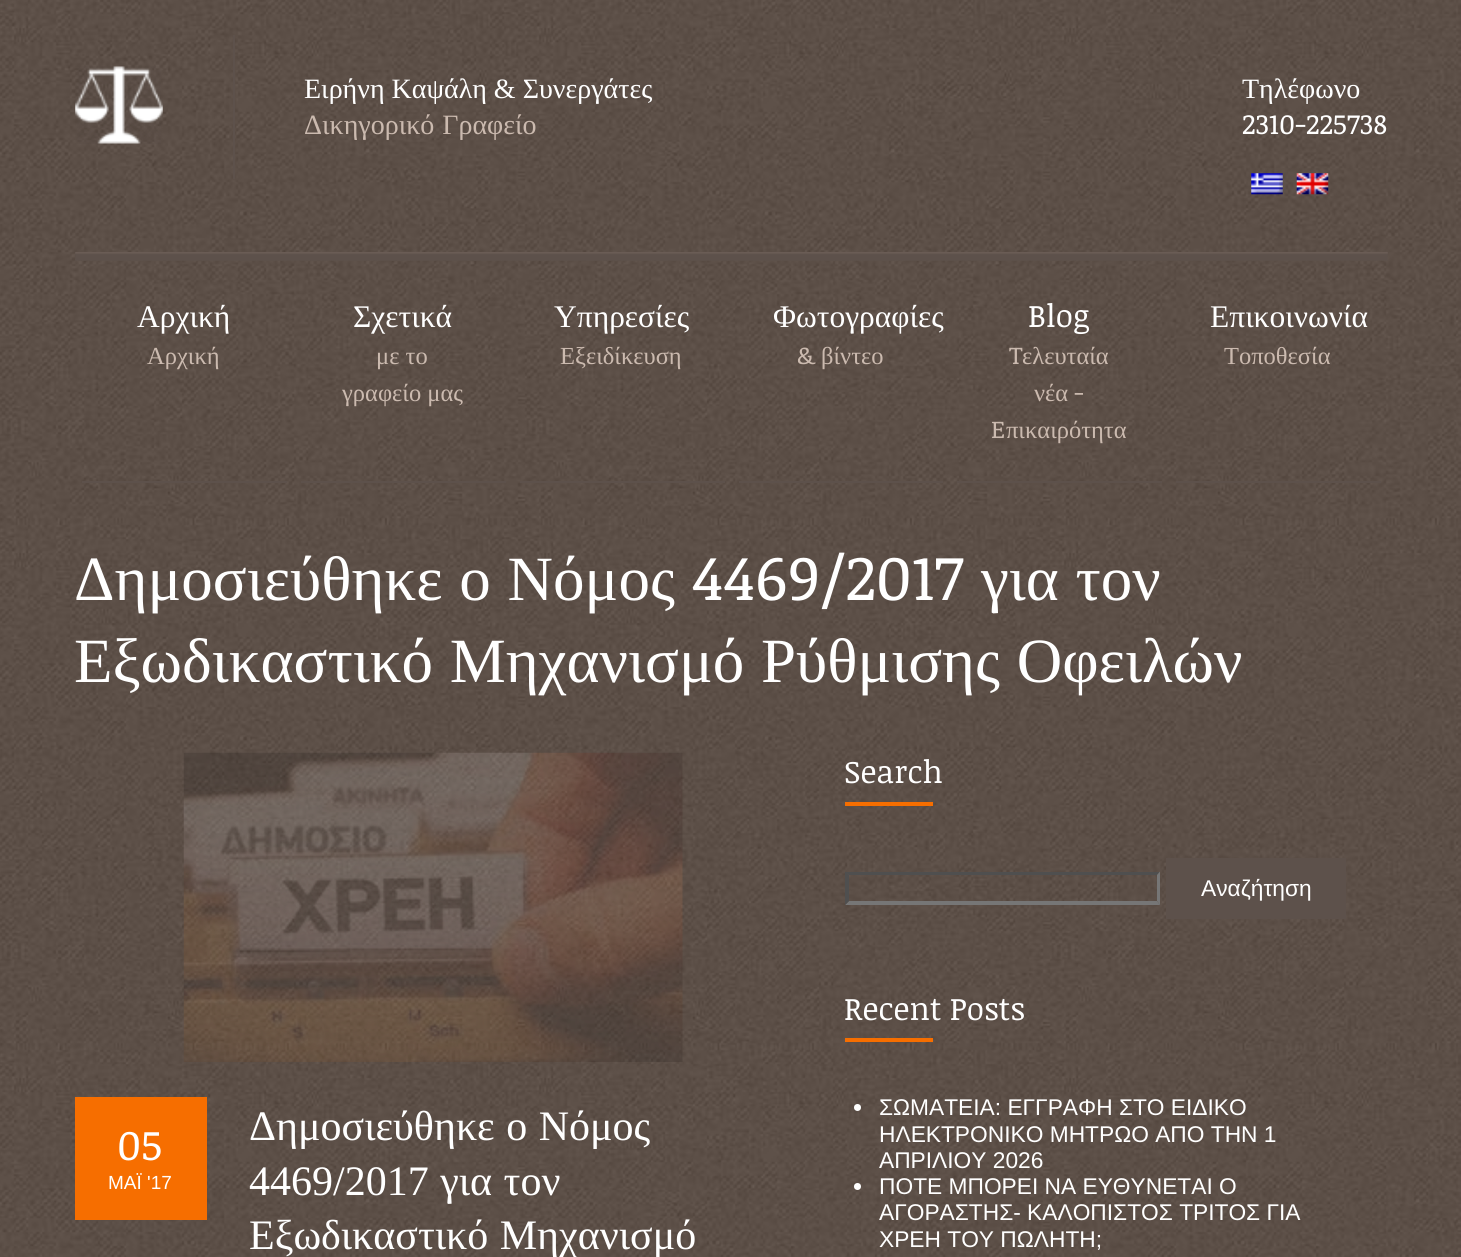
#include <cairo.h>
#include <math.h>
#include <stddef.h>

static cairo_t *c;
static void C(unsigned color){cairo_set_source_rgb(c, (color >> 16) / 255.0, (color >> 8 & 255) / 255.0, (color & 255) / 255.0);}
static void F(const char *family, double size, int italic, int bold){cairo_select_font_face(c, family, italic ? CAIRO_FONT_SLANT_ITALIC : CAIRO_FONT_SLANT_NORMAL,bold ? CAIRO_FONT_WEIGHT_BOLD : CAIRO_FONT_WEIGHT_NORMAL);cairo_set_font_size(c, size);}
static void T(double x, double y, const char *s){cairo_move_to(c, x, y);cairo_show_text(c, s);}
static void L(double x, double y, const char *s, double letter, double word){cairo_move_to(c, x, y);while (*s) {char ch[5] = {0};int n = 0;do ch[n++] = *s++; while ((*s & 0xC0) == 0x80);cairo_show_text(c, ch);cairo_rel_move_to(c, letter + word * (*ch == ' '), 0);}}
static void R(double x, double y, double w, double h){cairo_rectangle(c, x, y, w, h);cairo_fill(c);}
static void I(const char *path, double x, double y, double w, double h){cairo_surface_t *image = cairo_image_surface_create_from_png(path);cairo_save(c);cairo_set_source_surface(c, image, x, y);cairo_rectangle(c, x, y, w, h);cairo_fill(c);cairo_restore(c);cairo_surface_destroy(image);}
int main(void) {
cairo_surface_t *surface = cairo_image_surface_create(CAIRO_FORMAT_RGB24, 1461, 1257);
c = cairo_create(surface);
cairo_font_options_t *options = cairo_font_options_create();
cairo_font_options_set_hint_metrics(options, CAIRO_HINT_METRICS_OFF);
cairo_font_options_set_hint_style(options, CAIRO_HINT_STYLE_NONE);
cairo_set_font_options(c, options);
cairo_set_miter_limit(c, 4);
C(0xffffff);
cairo_paint(c);
I("1.png",0,0,1461,1257);
I("2.png",75,252,1313,9);
I("3.png",75,66,88,78);
C(0x5d514b);
R(233,35,2,144);
F("Liberation Serif",28,0,0);
C(0xffffff);
T(304,98,"Ειρήνη Καψάλη & Συνεργάτες");
C(0xcbbaaf);
L(304,134,"Δικηγορικό Γραφείο",0,1);
C(0xffffff);
T(1242,98,"Τηλέφωνο");
F("Noticia Text",28,0,0);
T(1242,134,"2310-225738");
I("4.png",1251,173,32,22);
I("5.png",1296,173,33,22);
C(0x5d514b);
R(82,481,205,2);
F("Liberation Serif",31.5,0,0);
C(0xffffff);
T(137,327,"Αρχική");
F("Liberation Serif",24.5,0,0);
C(0xcbbaaf);
T(147,364,"Αρχική");
C(0x5d514b);
R(301,481,205,2);
F("Liberation Serif",31.5,0,0);
C(0xffffff);
T(353,327,"Σχετικά");
F("Liberation Serif",24.5,0,0);
C(0xcbbaaf);
T(376,364,"με το");
T(342,401,"γραφείο μας");
C(0x5d514b);
R(520,481,205,2);
F("Liberation Serif",31.5,0,0);
C(0xffffff);
T(554,327,"Υπηρεσίες");
F("Liberation Serif",24.5,0,0);
C(0xcbbaaf);
T(560,364,"Εξειδίκευση");
C(0x5d514b);
R(739,481,204,2);
F("Liberation Serif",31.5,0,0);
C(0xffffff);
T(773,327,"Φωτογραφίες");
F("Noticia Text",24.5,0,0);
C(0xcbbaaf);
T(797,364,"&");
F("Liberation Serif",24.5,0,0);
T(821,364,"βίντεο");
C(0x5d514b);
R(957,481,205,2);
F("Noticia Text",31.5,0,0);
C(0xffffff);
T(1028,327,"Blog");
F("Noticia Text",24.5,0,0);
C(0xcbbaaf);
T(1009,364,"T");
F("Liberation Serif",24.5,0,0);
T(1022,364,"ελευταία");
T(1034,401,"νέα");
F("Noticia Text",24.5,0,0);
T(1074,401,"-");
T(991,438,"E");
F("Liberation Serif",24.5,0,0);
T(1006,438,"πικαιρότητα");
C(0x5d514b);
R(1176,481,205,2);
F("Liberation Serif",31.5,0,0);
C(0xffffff);
T(1210,327,"Επικοινωνία");
F("Liberation Serif",24.5,0,0);
C(0xcbbaaf);
T(1224,364,"Τοποθεσία");
F("Liberation Serif",63,0,0);
C(0xffffff);
L(74,600,"Δημοσιεύθηκε ο Νόμος",0,1);
F("Noticia Text",63,0,0);
T(692,600,"4469/2017");
F("Liberation Serif",63,0,0);
L(981,600,"για τον",0,1);
L(74,682,"Εξωδικαστικό Μηχανισμό Ρύθμισης Οφειλών",0,1);
I("6.png",183,752,500,310);
C(0xf66e00);
R(75,1097,132,123);
F("Noticia Text",42,0,0);
C(0xffffff);
T(117,1160,"05");
F("Liberation Sans",19,0,0);
T(108,1189,"ΜΑΪ '17");
F("Liberation Serif",42,0,0);
L(249,1140,"Δημοσιεύθηκε ο Νόμος",0,1);
L(249,1195,"4469/2017 για τον",0,1);
L(249,1249,"Εξωδικαστικό Μηχανισμό",0,1);
F("Noticia Text",31.5,0,0);
T(844,783,"Search");
C(0xf66e00);
R(845,802,88,4);
C(0x4f4f4f);
cairo_new_path(c);
cairo_move_to(c,845,872);
cairo_line_to(c,1160,872);
cairo_line_to(c,1157,875);
cairo_line_to(c,849,875);
cairo_close_path(c);
cairo_fill(c);
C(0x767676);
cairo_new_path(c);
cairo_move_to(c,1160,871.5);
cairo_line_to(c,1160,905);
cairo_line_to(c,1157,901);
cairo_line_to(c,1157,875);
cairo_close_path(c);
cairo_fill(c);
cairo_new_path(c);
cairo_move_to(c,1160,905);
cairo_line_to(c,845,905);
cairo_line_to(c,849,901);
cairo_line_to(c,1157,901);
cairo_close_path(c);
cairo_fill(c);
C(0x4f4f4f);
cairo_new_path(c);
cairo_move_to(c,845,905);
cairo_line_to(c,845,871.5);
cairo_line_to(c,849,875);
cairo_line_to(c,849,901);
cairo_close_path(c);
cairo_fill(c);
C(0x5d514b);
R(1166,858,180,61);
F("Liberation Sans",22.75,0,0);
C(0xffffff);
T(1201,896,"Αναζήτηση");
F("Noticia Text",31.5,0,0);
T(844,1020,"Recent Posts");
C(0xf66e00);
R(845,1038,88,4);
C(0xffffff);
cairo_new_path(c);
cairo_arc(c,857.5,1107.5,3.5,0,2 * M_PI);
cairo_fill(c);
F("Liberation Sans",22.75,0,0);
T(879,1115,"ΣΩΜΑΤΕΙΑ: ΕΓΓΡΑΦΗ ΣΤΟ ΕΙΔΙΚΟ");
T(879,1142,"ΗΛΕΚΤΡΟΝΙΚΟ ΜΗΤΡΩΟ ΑΠΟ ΤΗΝ 1");
T(879,1168,"ΑΠΡΙΛΙΟΥ 2026");
cairo_new_path(c);
cairo_arc(c,857.5,1186.5,3.5,0,2 * M_PI);
cairo_fill(c);
T(879,1194,"ΠΟΤΕ ΜΠΟΡΕΙ ΝΑ ΕΥΘΥΝΕΤΑΙ Ο");
T(879,1220,"ΑΓΟΡΑΣΤΗΣ- ΚΑΛΟΠΙΣΤΟΣ ΤΡΙΤΟΣ ΓΙΑ");
T(879,1247,"ΧΡΕΗ ΤΟΥ ΠΩΛΗΤΗ;");
cairo_surface_write_to_png(surface, "o.png");
cairo_font_options_destroy(options);
cairo_destroy(c);
cairo_surface_destroy(surface);
return 0;
}
